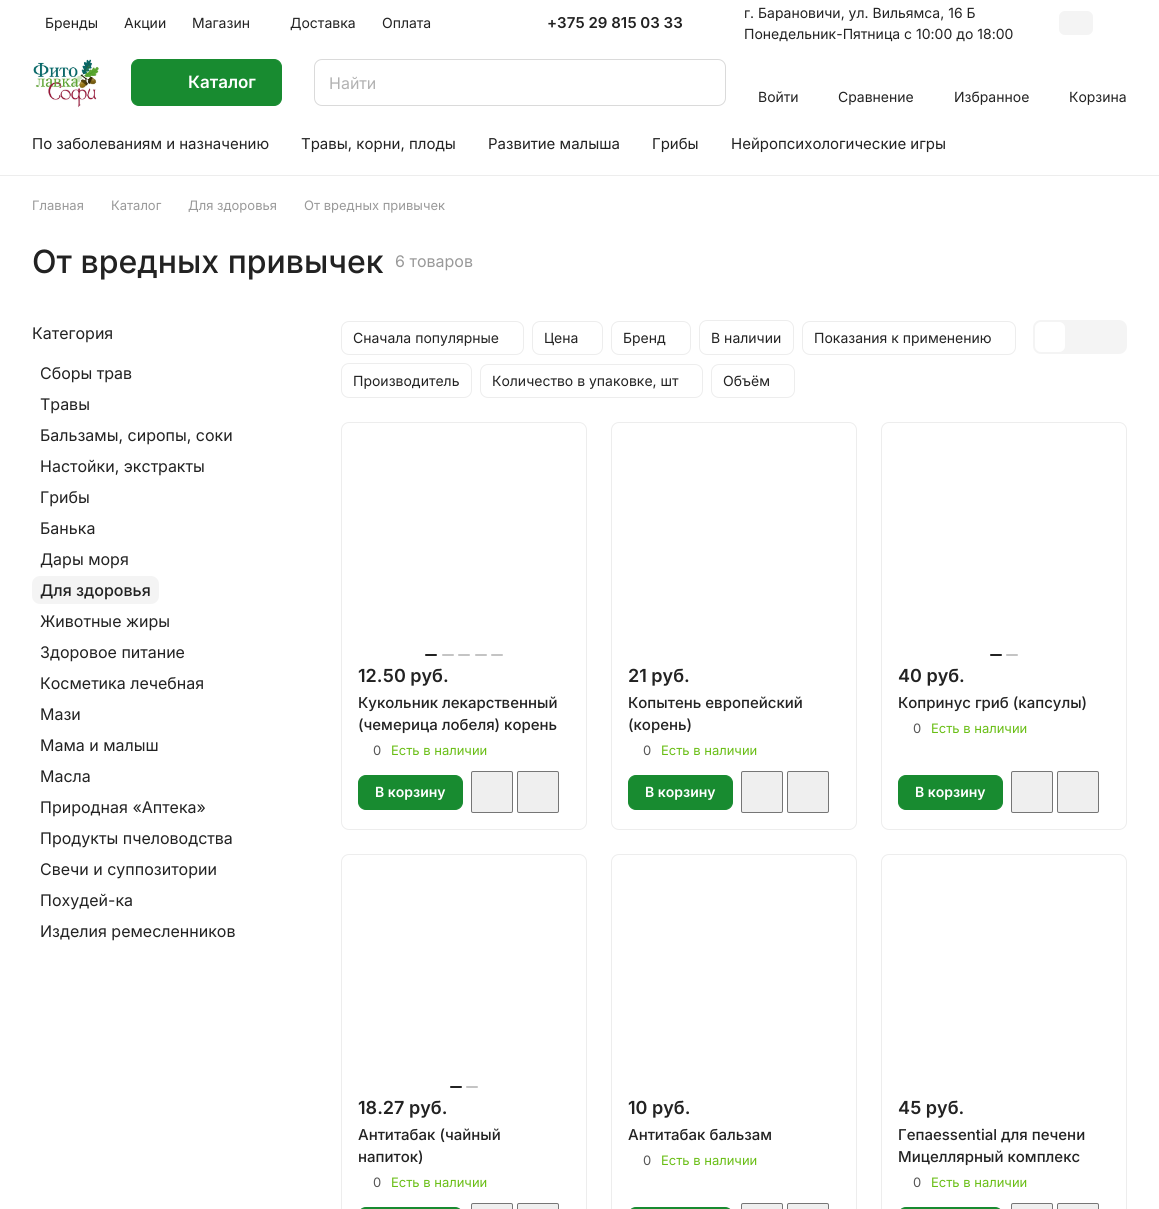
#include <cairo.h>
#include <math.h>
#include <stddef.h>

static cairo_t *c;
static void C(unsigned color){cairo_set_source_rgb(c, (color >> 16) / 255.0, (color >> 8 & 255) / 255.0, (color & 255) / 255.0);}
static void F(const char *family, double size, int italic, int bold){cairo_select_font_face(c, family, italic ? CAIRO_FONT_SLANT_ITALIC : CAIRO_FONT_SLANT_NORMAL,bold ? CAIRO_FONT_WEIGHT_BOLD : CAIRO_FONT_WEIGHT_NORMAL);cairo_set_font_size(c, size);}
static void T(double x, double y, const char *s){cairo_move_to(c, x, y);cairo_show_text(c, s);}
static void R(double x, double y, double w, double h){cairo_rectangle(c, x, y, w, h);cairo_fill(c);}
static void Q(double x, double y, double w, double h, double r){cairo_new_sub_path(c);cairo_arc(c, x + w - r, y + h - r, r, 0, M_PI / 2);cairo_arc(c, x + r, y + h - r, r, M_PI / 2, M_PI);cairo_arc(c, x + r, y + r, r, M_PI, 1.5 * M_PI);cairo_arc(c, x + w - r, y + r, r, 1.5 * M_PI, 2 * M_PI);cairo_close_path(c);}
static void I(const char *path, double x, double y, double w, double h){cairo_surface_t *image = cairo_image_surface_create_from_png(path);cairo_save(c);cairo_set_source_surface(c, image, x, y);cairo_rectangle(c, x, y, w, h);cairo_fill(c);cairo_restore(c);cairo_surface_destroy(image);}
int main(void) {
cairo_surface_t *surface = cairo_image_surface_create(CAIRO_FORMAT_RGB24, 1159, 1209);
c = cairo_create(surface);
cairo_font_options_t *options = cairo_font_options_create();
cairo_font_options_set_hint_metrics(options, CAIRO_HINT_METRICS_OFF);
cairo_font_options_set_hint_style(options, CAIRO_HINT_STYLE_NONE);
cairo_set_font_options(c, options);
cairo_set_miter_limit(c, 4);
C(0xffffff);
cairo_paint(c);
C(0xededed);
R(0,175,1159,1);
F("Inter",14,0,0);
C(0x222222);
T(45,28,"Бренды");
T(124,28,"Акции");
T(192,28,"Магазин");
T(290,28,"Доставка");
T(382,28,"Оплата");
F("Inter SemiBold",15,0,0);
T(547,28,"+375 29 815 03 33");
F("Inter",14,0,0);
T(744,18,"г. Барановичи, ул. Вильямса, 16 Б");
T(744,39,"Понедельник-Пятница с 10:00 до 18:00");
C(0xf4f4f4);
Q(1059,11,34,24,6);
cairo_fill(c);
I("1.png",33,59,66,49);
C(0x188b30);
Q(131.5,59.5,150,46,7.5);
cairo_fill_preserve(c);
cairo_set_line_width(c,1);
cairo_stroke(c);
F("Inter SemiBold",17,0,0);
C(0xffffff);
T(188,88,"Каталог");
Q(314.5,59.5,411,46,7.5);
C(0xdadada);
cairo_stroke(c);
F("Inter",16,0,0);
C(0xb2b2b2);
T(329,89,"Найти");
F("Inter",14,0,0);
C(0x222222);
T(758,102,"Войти");
T(838,102,"Сравнение");
T(954,102,"Избранное");
T(1069,102,"Корзина");
F("Inter",15,0,0);
T(32,149,"По заболеваниям и назначению");
T(301,149,"Травы, корни, плоды");
T(488,149,"Развитие малыша");
T(652,149,"Грибы");
T(731,149,"Нейропсихологические игры");
F("Inter",13,0,0);
C(0x999999);
T(32,210,"Главная");
T(111,210,"Каталог");
T(188,210,"Для здоровья");
T(304,210,"От вредных привычек");
F("Inter Medium",32,0,0);
C(0x222222);
T(32,273,"От вредных привычек");
F("Inter",16,0,0);
C(0x999999);
T(395,267,"6 товаров");
C(0x222222);
T(32,339,"Категория");
T(40,379,"Сборы трав");
T(40,410,"Травы");
T(40,441,"Бальзамы, сиропы, соки");
T(40,472,"Настойки, экстракты");
T(40,503,"Грибы");
T(40,534,"Банька");
T(40,565,"Дары моря");
C(0xf4f4f4);
Q(32,576,127,28,8);
cairo_fill(c);
F("Inter Medium",16,0,0);
C(0x222222);
T(40,596,"Для здоровья");
F("Inter",16,0,0);
T(40,627,"Животные жиры");
T(40,658,"Здоровое питание");
T(40,689,"Косметика лечебная");
T(40,720,"Мази");
T(40,751,"Мама и малыш");
T(40,782,"Масла");
T(40,813,"Природная «Аптека»");
T(40,844,"Продукты пчеловодства");
T(40,875,"Свечи и суппозитории");
T(40,906,"Похудей-ка");
T(40,937,"Изделия ремесленников");
Q(341.5,321.5,182,33,7.5);
C(0xededed);
cairo_stroke(c);
F("Inter",14,0,0);
C(0x222222);
T(353,343,"Сначала популярные");
Q(532.5,321.5,70,33,7.5);
C(0xededed);
cairo_stroke(c);
C(0x222222);
T(544,343,"Цена");
Q(611.5,321.5,79,33,7.5);
C(0xededed);
cairo_stroke(c);
C(0x222222);
T(623,343,"Бренд");
Q(699.5,320.5,94,34,7.5);
C(0xededed);
cairo_stroke(c);
C(0x222222);
T(711,343,"В наличии");
Q(802.5,321.5,213,33,7.5);
C(0xededed);
cairo_stroke(c);
C(0x222222);
T(814,343,"Показания к применению");
Q(341.5,363.5,130,34,7.5);
C(0xededed);
cairo_stroke(c);
C(0x222222);
T(353,386,"Производитель");
Q(480.5,364.5,222,33,7.5);
C(0xededed);
cairo_stroke(c);
C(0x222222);
T(492,386,"Количество в упаковке, шт");
Q(711.5,364.5,83,33,7.5);
C(0xededed);
cairo_stroke(c);
C(0x222222);
T(723,386,"Объём");
C(0xf4f4f4);
Q(1034,321,92,32,7);
cairo_fill_preserve(c);
cairo_set_line_width(c,2);
cairo_stroke(c);
C(0xffffff);
Q(1035,322,30,30,6);
cairo_fill(c);
Q(341.5,422.5,245,407,7.5);
C(0xededed);
cairo_set_line_width(c,1);
cairo_stroke(c);
C(0x222222);
Q(425,654,12,2,1);
cairo_fill(c);
C(0xc4c4c4);
Q(442,654,12,2,1);
cairo_fill(c);
Q(458,654,12,2,1);
cairo_fill(c);
Q(475,654,12,2,1);
cairo_fill(c);
Q(491,654,12,2,1);
cairo_fill(c);
F("Inter SemiBold",18,0,0);
C(0x222222);
T(358,682,"12.50 руб.");
F("Inter Medium",15,0,0);
T(358,708,"Кукольник лекарственный");
T(358,730,"(чемерица лобеля) корень");
F("Inter",13,0,0);
C(0x555555);
T(373,755,"0");
C(0x69be15);
T(391,755,"Есть в наличии");
C(0x188b30);
Q(358.5,775.5,104,34,7.5);
cairo_fill_preserve(c);
cairo_stroke(c);
F("Inter SemiBold",14,0,0);
C(0xffffff);
T(375,797,"В корзину");
C(0xefefef);
Q(471.5,771.5,41,41,1.5);
cairo_fill_preserve(c);
C(0x767676);
cairo_stroke(c);
C(0xefefef);
Q(517.5,771.5,41,41,1.5);
cairo_fill_preserve(c);
C(0x767676);
cairo_stroke(c);
Q(611.5,422.5,245,407,7.5);
C(0xededed);
cairo_stroke(c);
F("Inter SemiBold",18,0,0);
C(0x222222);
T(628,682,"21 руб.");
F("Inter Medium",15,0,0);
T(628,708,"Копытень европейский");
T(628,730,"(корень)");
F("Inter",13,0,0);
C(0x555555);
T(643,755,"0");
C(0x69be15);
T(661,755,"Есть в наличии");
C(0x188b30);
Q(628.5,775.5,104,34,7.5);
cairo_fill_preserve(c);
cairo_stroke(c);
F("Inter SemiBold",14,0,0);
C(0xffffff);
T(645,797,"В корзину");
C(0xefefef);
Q(741.5,771.5,41,41,1.5);
cairo_fill_preserve(c);
C(0x767676);
cairo_stroke(c);
C(0xefefef);
Q(787.5,771.5,41,41,1.5);
cairo_fill_preserve(c);
C(0x767676);
cairo_stroke(c);
Q(881.5,422.5,245,407,7.5);
C(0xededed);
cairo_stroke(c);
C(0x222222);
Q(990,654,12,2,1);
cairo_fill(c);
C(0xc4c4c4);
Q(1006,654,12,2,1);
cairo_fill(c);
F("Inter SemiBold",18,0,0);
C(0x222222);
T(898,682,"40 руб.");
F("Inter Medium",15,0,0);
T(898,708,"Копринус гриб (капсулы)");
F("Inter",13,0,0);
C(0x555555);
T(913,733,"0");
C(0x69be15);
T(931,733,"Есть в наличии");
C(0x188b30);
Q(898.5,775.5,104,34,7.5);
cairo_fill_preserve(c);
cairo_stroke(c);
F("Inter SemiBold",14,0,0);
C(0xffffff);
T(915,797,"В корзину");
C(0xefefef);
Q(1011.5,771.5,41,41,1.5);
cairo_fill_preserve(c);
C(0x767676);
cairo_stroke(c);
C(0xefefef);
Q(1057.5,771.5,41,41,1.5);
cairo_fill_preserve(c);
C(0x767676);
cairo_stroke(c);
Q(341.5,854.5,245,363,7.5);
C(0xededed);
cairo_stroke(c);
C(0x222222);
Q(450,1086,12,2,1);
cairo_fill(c);
C(0xc4c4c4);
Q(466,1086,12,2,1);
cairo_fill(c);
F("Inter SemiBold",18,0,0);
C(0x222222);
T(358,1114,"18.27 руб.");
F("Inter Medium",15,0,0);
T(358,1140,"Антитабак (чайный");
T(358,1162,"напиток)");
F("Inter",13,0,0);
C(0x555555);
T(373,1187,"0");
C(0x69be15);
T(391,1187,"Есть в наличии");
C(0x188b30);
Q(358.5,1207.5,104,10,7.5);
cairo_fill_preserve(c);
cairo_stroke(c);
C(0xefefef);
Q(471.5,1203.5,41,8,1.5);
cairo_fill_preserve(c);
C(0x767676);
cairo_stroke(c);
C(0xefefef);
Q(517.5,1203.5,41,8,1.5);
cairo_fill_preserve(c);
C(0x767676);
cairo_stroke(c);
Q(611.5,854.5,245,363,7.5);
C(0xededed);
cairo_stroke(c);
F("Inter SemiBold",18,0,0);
C(0x222222);
T(628,1114,"10 руб.");
F("Inter Medium",15,0,0);
T(628,1140,"Антитабак бальзам");
F("Inter",13,0,0);
C(0x555555);
T(643,1165,"0");
C(0x69be15);
T(661,1165,"Есть в наличии");
C(0x188b30);
Q(628.5,1207.5,104,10,7.5);
cairo_fill_preserve(c);
cairo_stroke(c);
C(0xefefef);
Q(741.5,1203.5,41,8,1.5);
cairo_fill_preserve(c);
C(0x767676);
cairo_stroke(c);
C(0xefefef);
Q(787.5,1203.5,41,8,1.5);
cairo_fill_preserve(c);
C(0x767676);
cairo_stroke(c);
Q(881.5,854.5,245,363,7.5);
C(0xededed);
cairo_stroke(c);
F("Inter SemiBold",18,0,0);
C(0x222222);
T(898,1114,"45 руб.");
F("Inter Medium",15,0,0);
T(898,1140,"Гепаessential для печени");
T(898,1162,"Мицеллярный комплекс");
F("Inter",13,0,0);
C(0x555555);
T(913,1187,"0");
C(0x69be15);
T(931,1187,"Есть в наличии");
C(0x188b30);
Q(898.5,1207.5,104,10,7.5);
cairo_fill_preserve(c);
cairo_stroke(c);
C(0xefefef);
Q(1011.5,1203.5,41,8,1.5);
cairo_fill_preserve(c);
C(0x767676);
cairo_stroke(c);
C(0xefefef);
Q(1057.5,1203.5,41,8,1.5);
cairo_fill_preserve(c);
C(0x767676);
cairo_stroke(c);
cairo_surface_write_to_png(surface, "o.png");
cairo_font_options_destroy(options);
cairo_destroy(c);
cairo_surface_destroy(surface);
return 0;
}
